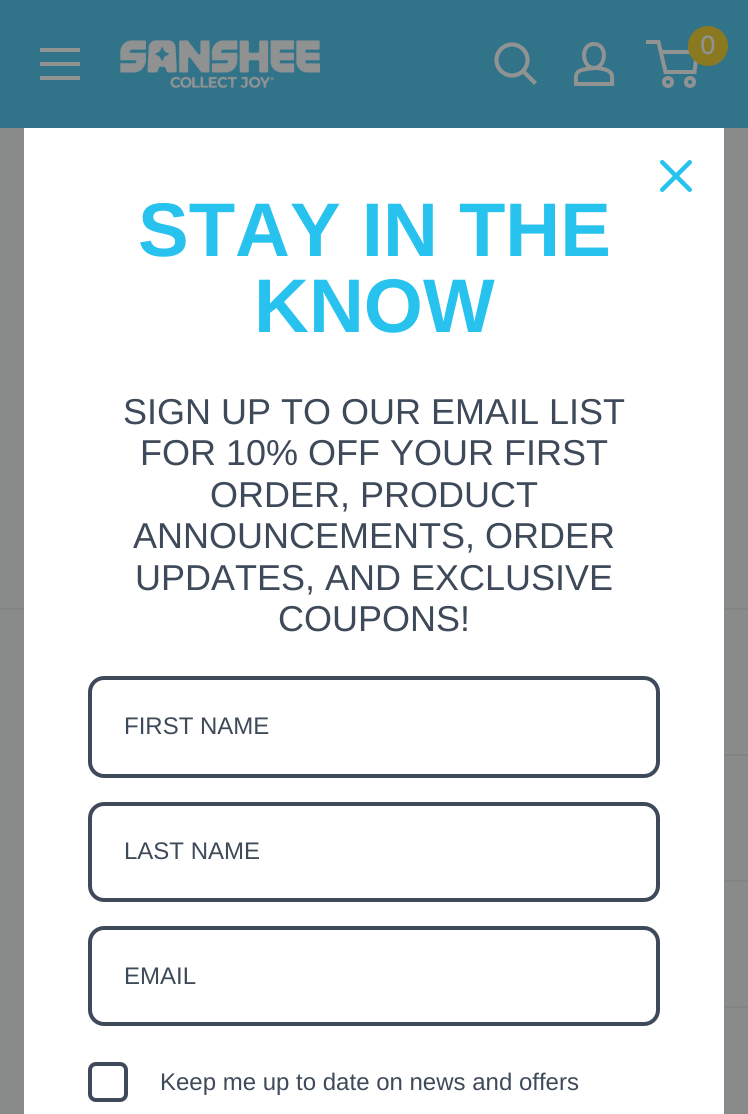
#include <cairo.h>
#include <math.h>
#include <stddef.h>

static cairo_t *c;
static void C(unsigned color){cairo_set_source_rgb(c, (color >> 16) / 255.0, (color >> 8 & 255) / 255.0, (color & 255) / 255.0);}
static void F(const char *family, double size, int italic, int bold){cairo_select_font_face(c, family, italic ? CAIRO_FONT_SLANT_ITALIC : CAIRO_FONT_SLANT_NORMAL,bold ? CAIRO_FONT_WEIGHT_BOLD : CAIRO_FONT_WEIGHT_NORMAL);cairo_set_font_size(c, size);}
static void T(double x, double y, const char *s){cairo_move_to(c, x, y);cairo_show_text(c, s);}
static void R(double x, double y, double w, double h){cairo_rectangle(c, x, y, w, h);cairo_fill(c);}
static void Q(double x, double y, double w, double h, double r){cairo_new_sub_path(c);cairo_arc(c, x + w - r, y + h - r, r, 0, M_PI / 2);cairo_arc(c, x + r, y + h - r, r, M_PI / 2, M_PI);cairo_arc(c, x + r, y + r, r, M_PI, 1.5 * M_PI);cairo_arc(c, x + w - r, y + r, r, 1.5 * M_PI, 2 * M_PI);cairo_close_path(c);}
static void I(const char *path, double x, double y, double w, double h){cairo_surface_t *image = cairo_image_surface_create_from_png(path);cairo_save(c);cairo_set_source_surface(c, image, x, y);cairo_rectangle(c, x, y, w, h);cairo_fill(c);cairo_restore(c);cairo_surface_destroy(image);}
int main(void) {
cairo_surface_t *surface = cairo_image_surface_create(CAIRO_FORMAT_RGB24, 748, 1114);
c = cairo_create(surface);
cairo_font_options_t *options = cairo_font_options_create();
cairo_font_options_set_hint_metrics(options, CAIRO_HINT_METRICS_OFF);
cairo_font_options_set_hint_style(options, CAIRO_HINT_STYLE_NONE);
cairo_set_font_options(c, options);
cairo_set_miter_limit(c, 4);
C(0x898b8b);
cairo_paint(c);
C(0x317389);
R(0,0,748,128);
C(0x919292);
cairo_set_fill_rule(c,CAIRO_FILL_RULE_EVEN_ODD);
cairo_new_path(c);
cairo_move_to(c,40,76);
cairo_line_to(c,80,76);
cairo_line_to(c,80,80);
cairo_line_to(c,40,80);
cairo_close_path(c);
cairo_move_to(c,40,48);
cairo_line_to(c,80,48);
cairo_line_to(c,80,52);
cairo_line_to(c,40,52);
cairo_close_path(c);
cairo_move_to(c,40,62);
cairo_line_to(c,80,62);
cairo_line_to(c,80,66);
cairo_line_to(c,40,66);
cairo_close_path(c);
cairo_fill(c);
I("1.png",120,40,200,48);
cairo_new_path(c);
cairo_move_to(c,534,82);
cairo_line_to(c,523.5,71.5);
cairo_set_line_width(c,4.2);
cairo_set_line_cap(c,CAIRO_LINE_CAP_SQUARE);
cairo_stroke(c);
cairo_arc(c,512,60,15.5,0,2 * M_PI);
cairo_set_line_cap(c,CAIRO_LINE_CAP_BUTT);
cairo_stroke(c);
cairo_new_path(c);
cairo_move_to(c,594,68);
cairo_curve_to(c,598,68,601.5,68.5,605,69.5);
cairo_curve_to(c,613.5,72,612,76.5,612,84);
cairo_line_to(c,576,84);
cairo_curve_to(c,576,76,574.5,71.5,583.5,69.5);
cairo_close_path(c);
cairo_move_to(c,594,68);
cairo_curve_to(c,582,68,579.5,44,594,44);
cairo_curve_to(c,608.5,44,606,68,594,68);
cairo_close_path(c);
cairo_set_line_width(c,4);
cairo_stroke(c);
cairo_arc(c,668,82,4,0,2 * M_PI);
cairo_stroke(c);
cairo_arc(c,690,82,4,0,2 * M_PI);
cairo_stroke(c);
cairo_new_path(c);
cairo_move_to(c,660.5,52);
cairo_line_to(c,697,52);
cairo_line_to(c,694.5,72);
cairo_line_to(c,665.5,72);
cairo_line_to(c,658.5,42);
cairo_line_to(c,646,42);
cairo_stroke(c);
C(0x8a7920);
cairo_arc(c,708,46,20,0,2 * M_PI);
cairo_fill(c);
F("Nunito SemiBold",26,0,0);
C(0x919292);
T(700,54,"0");
C(0x828484);
R(0,608,748,2);
C(0xffffff);
R(24,128,700,986);
I("2.png",660,160,32,32);
F("Liberation Sans",76,0,1);
C(0x27c2ee);
T(138,256,"STAY IN THE");
T(254,332,"KNOW");
F("Liberation Sans",36,0,0);
C(0x3e4a59);
T(123,424,"SIGN UP TO OUR EMAIL LIST");
T(140,465,"FOR 10% OFF YOUR FIRST");
T(210,507,"ORDER, PRODUCT");
T(133,548,"ANNOUNCEMENTS, ORDER");
T(135,590,"UPDATES, AND EXCLUSIVE");
T(278,631,"COUPONS!");
Q(90,678,568,98,14);
cairo_stroke(c);
F("Liberation Sans",24,0,0);
T(124,734,"FIRST NAME");
Q(90,804,568,96,14);
cairo_stroke(c);
T(124,859,"LAST NAME");
Q(90,928,568,96,14);
cairo_stroke(c);
T(124,984,"EMAIL");
Q(90,1064,36,36,6);
cairo_stroke(c);
T(160,1090,"Keep me up to date on news and offers");
C(0x828484);
R(724,754,24,2);
R(724,880,24,2);
R(724,1006,24,2);
cairo_surface_write_to_png(surface, "o.png");
cairo_font_options_destroy(options);
cairo_destroy(c);
cairo_surface_destroy(surface);
return 0;
}
